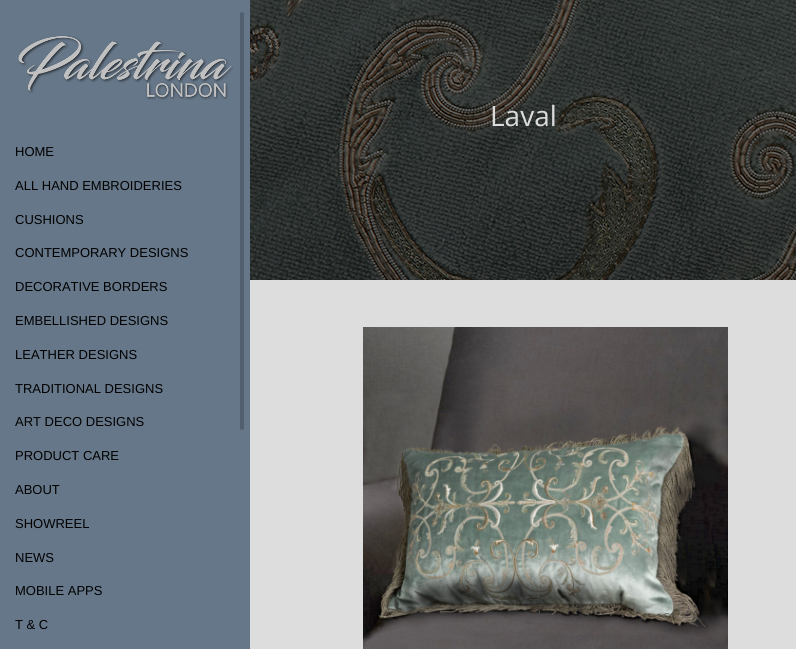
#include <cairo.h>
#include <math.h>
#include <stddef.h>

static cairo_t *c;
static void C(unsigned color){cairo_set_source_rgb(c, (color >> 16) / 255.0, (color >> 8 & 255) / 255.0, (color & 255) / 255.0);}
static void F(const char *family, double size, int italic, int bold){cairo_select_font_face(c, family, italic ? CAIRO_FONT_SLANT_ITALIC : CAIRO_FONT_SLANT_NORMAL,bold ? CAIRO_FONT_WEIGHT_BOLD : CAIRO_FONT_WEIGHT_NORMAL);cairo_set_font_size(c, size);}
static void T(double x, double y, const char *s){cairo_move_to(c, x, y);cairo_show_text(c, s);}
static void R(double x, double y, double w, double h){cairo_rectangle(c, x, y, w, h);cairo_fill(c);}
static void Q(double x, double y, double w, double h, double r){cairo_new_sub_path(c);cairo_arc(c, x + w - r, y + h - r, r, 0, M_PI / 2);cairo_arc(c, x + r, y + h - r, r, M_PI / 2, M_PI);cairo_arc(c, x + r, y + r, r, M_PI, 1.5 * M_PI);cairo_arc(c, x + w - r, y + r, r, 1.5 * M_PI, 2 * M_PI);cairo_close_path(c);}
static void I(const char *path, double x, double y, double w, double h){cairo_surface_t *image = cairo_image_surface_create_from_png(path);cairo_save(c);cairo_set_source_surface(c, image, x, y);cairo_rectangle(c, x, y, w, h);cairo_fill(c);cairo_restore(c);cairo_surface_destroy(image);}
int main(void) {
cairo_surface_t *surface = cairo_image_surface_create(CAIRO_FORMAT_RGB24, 796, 649);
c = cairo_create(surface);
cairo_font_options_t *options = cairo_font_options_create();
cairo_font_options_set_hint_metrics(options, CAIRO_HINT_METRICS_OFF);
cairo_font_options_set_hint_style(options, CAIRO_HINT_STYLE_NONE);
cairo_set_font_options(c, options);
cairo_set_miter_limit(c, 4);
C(0xdddddd);
cairo_paint(c);
I("1.png",250,0,546,280);
F("Open Sans",28,0,0);
C(0xdcdcdc);
T(490,126,"Laval");
I("2.png",363,327,365,322);
C(0x667789);
R(0,0,250,649);
I("3.png",18,35,216,65);
F("Liberation Sans",13,0,0);
C(0x000000);
T(15,156,"HOME");
T(15,190,"ALL HAND EMBROIDERIES");
T(15,224,"CUSHIONS");
T(15,257,"CONTEMPORARY DESIGNS");
T(15,291,"DECORATIVE BORDERS");
T(15,325,"EMBELLISHED DESIGNS");
T(15,359,"LEATHER DESIGNS");
T(15,393,"TRADITIONAL DESIGNS");
T(15,426,"ART DECO DESIGNS");
T(15,460,"PRODUCT CARE");
T(15,494,"ABOUT");
T(15,528,"SHOWREEL");
T(15,562,"NEWS");
T(15,595,"MOBILE APPS");
T(15,629,"T & C");
C(0x525f6e);
Q(240,12,4,418,2);
cairo_fill(c);
cairo_surface_write_to_png(surface, "o.png");
cairo_font_options_destroy(options);
cairo_destroy(c);
cairo_surface_destroy(surface);
return 0;
}
